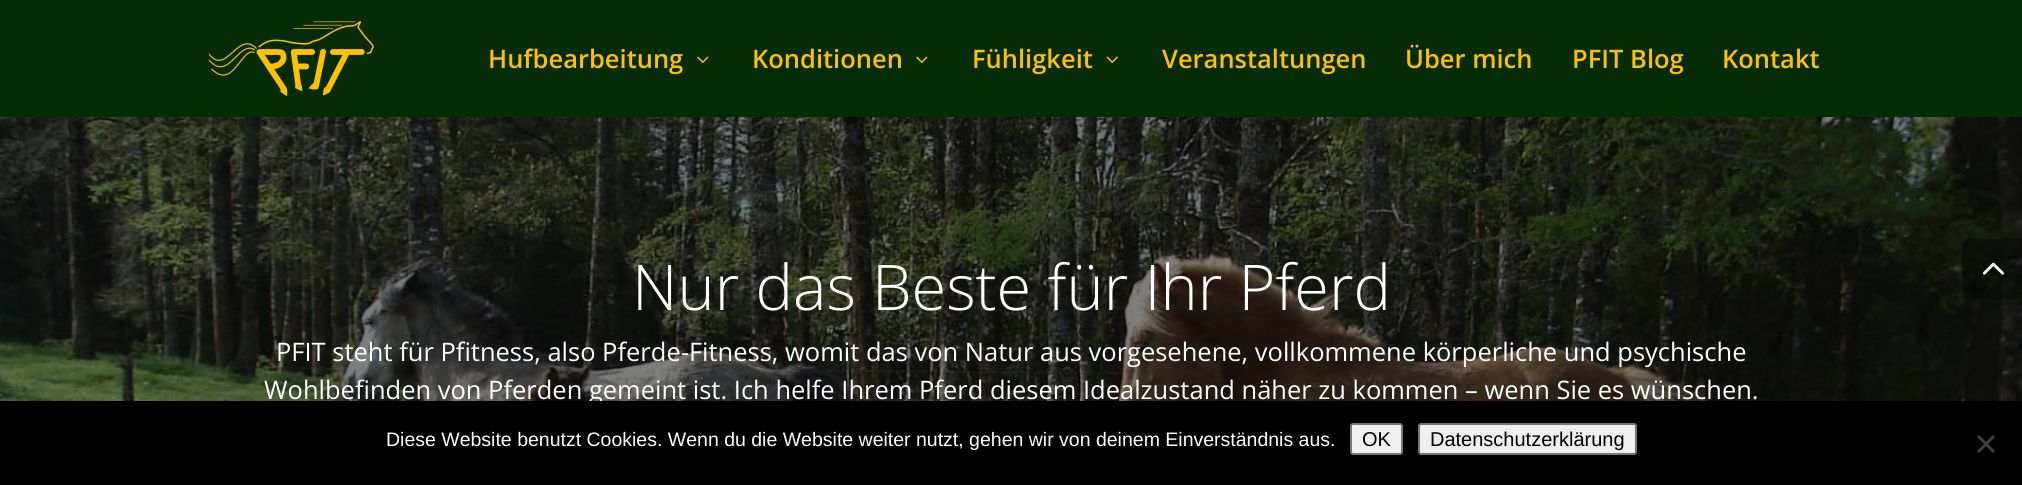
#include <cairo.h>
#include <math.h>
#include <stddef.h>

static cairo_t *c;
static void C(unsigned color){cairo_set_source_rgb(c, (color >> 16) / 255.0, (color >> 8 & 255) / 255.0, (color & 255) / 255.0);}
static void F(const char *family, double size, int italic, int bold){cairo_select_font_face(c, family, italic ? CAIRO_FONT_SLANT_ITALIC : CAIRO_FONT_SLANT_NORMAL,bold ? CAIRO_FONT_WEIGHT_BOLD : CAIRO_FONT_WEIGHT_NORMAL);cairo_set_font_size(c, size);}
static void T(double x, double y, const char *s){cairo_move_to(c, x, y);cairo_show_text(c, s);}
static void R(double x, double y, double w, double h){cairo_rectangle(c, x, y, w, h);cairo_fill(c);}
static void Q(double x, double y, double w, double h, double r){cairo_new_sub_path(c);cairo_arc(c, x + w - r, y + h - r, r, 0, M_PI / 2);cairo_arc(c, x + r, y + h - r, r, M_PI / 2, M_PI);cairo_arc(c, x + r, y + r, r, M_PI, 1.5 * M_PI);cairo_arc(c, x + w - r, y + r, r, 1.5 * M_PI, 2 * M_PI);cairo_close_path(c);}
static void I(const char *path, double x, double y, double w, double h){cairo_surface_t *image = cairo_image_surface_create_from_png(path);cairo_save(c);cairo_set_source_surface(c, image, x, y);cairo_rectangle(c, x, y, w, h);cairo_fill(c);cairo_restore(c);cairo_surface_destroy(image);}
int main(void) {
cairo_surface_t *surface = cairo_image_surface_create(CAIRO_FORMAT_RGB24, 2022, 485);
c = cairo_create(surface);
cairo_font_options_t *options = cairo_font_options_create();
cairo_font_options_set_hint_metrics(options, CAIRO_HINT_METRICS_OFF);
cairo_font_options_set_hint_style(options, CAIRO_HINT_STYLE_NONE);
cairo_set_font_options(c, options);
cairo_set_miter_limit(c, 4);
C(0xffffff);
cairo_paint(c);
C(0x062c06);
R(0,0,2022,117);
I("1.png",209,21,165,75);
F("Open Sans SemiBold",25.5,0,0);
C(0xffc000);
T(488,68,"Hufbearbeitung");
I("2.png",697,56,12,7);
T(752,68,"Konditionen");
I("2.png",916,56,12,7);
T(972,68,"Fühligkeit");
I("3.png",1106,56,12,7);
T(1162,68,"Veranstaltungen");
T(1405,68,"Über mich");
T(1572,68,"PFIT Blog");
T(1722,68,"Kontakt");
I("4.png",0,117,2022,284);
F("Open Sans Light",63,0,0);
C(0xffffff);
T(632,310,"Nur das Beste für Ihr Pferd");
F("Open Sans",25.5,0,0);
T(276,361,"PFIT steht für Pfitness, also Pferde-Fitness, womit das von Natur aus vorgesehene, vollkommene körperliche und psychische");
T(264,399,"Wohlbefinden von Pferden gemeint ist. Ich helfe Ihrem Pferd diesem Idealzustand näher zu kommen – wenn Sie es wünschen.");
cairo_set_source_rgba(c,0,0,0,0.4);
cairo_new_path(c);
cairo_move_to(c,1970,239);
cairo_line_to(c,2022,239);
cairo_line_to(c,2022,299);
cairo_line_to(c,1970,299);
cairo_curve_to(c,1965.5,299,1962,295.5,1962,291);
cairo_line_to(c,1962,247);
cairo_curve_to(c,1962,242.5,1965.5,239,1970,239);
cairo_close_path(c);
cairo_fill(c);
I("5.png",1982,262,22,13);
C(0x000000);
R(0,401,2022,84);
F("Liberation Sans",19.5,0,0);
C(0xffffff);
T(386,446,"Diese Website benutzt Cookies. Wenn du die Website weiter nutzt, gehen wir von deinem Einverständnis aus.");
C(0xefefef);
Q(1351,424,51,30,2);
cairo_fill_preserve(c);
C(0x767676);
cairo_stroke(c);
F("Liberation Sans",20,0,0);
C(0x000000);
T(1362,446,"OK");
C(0xefefef);
Q(1419,424,217,30,2);
cairo_fill_preserve(c);
C(0x767676);
cairo_stroke(c);
C(0x000000);
T(1430,446,"Datenschutzerklärung");
C(0x404040);
cairo_new_path(c);
cairo_move_to(c,1993,435);
cairo_line_to(c,1995,437);
cairo_line_to(c,1979,453);
cairo_line_to(c,1977,451);
cairo_close_path(c);
cairo_fill(c);
cairo_new_path(c);
cairo_move_to(c,1977,437);
cairo_line_to(c,1979,435);
cairo_line_to(c,1995,451);
cairo_line_to(c,1993,453);
cairo_close_path(c);
cairo_fill(c);
cairo_surface_write_to_png(surface, "o.png");
cairo_font_options_destroy(options);
cairo_destroy(c);
cairo_surface_destroy(surface);
return 0;
}
